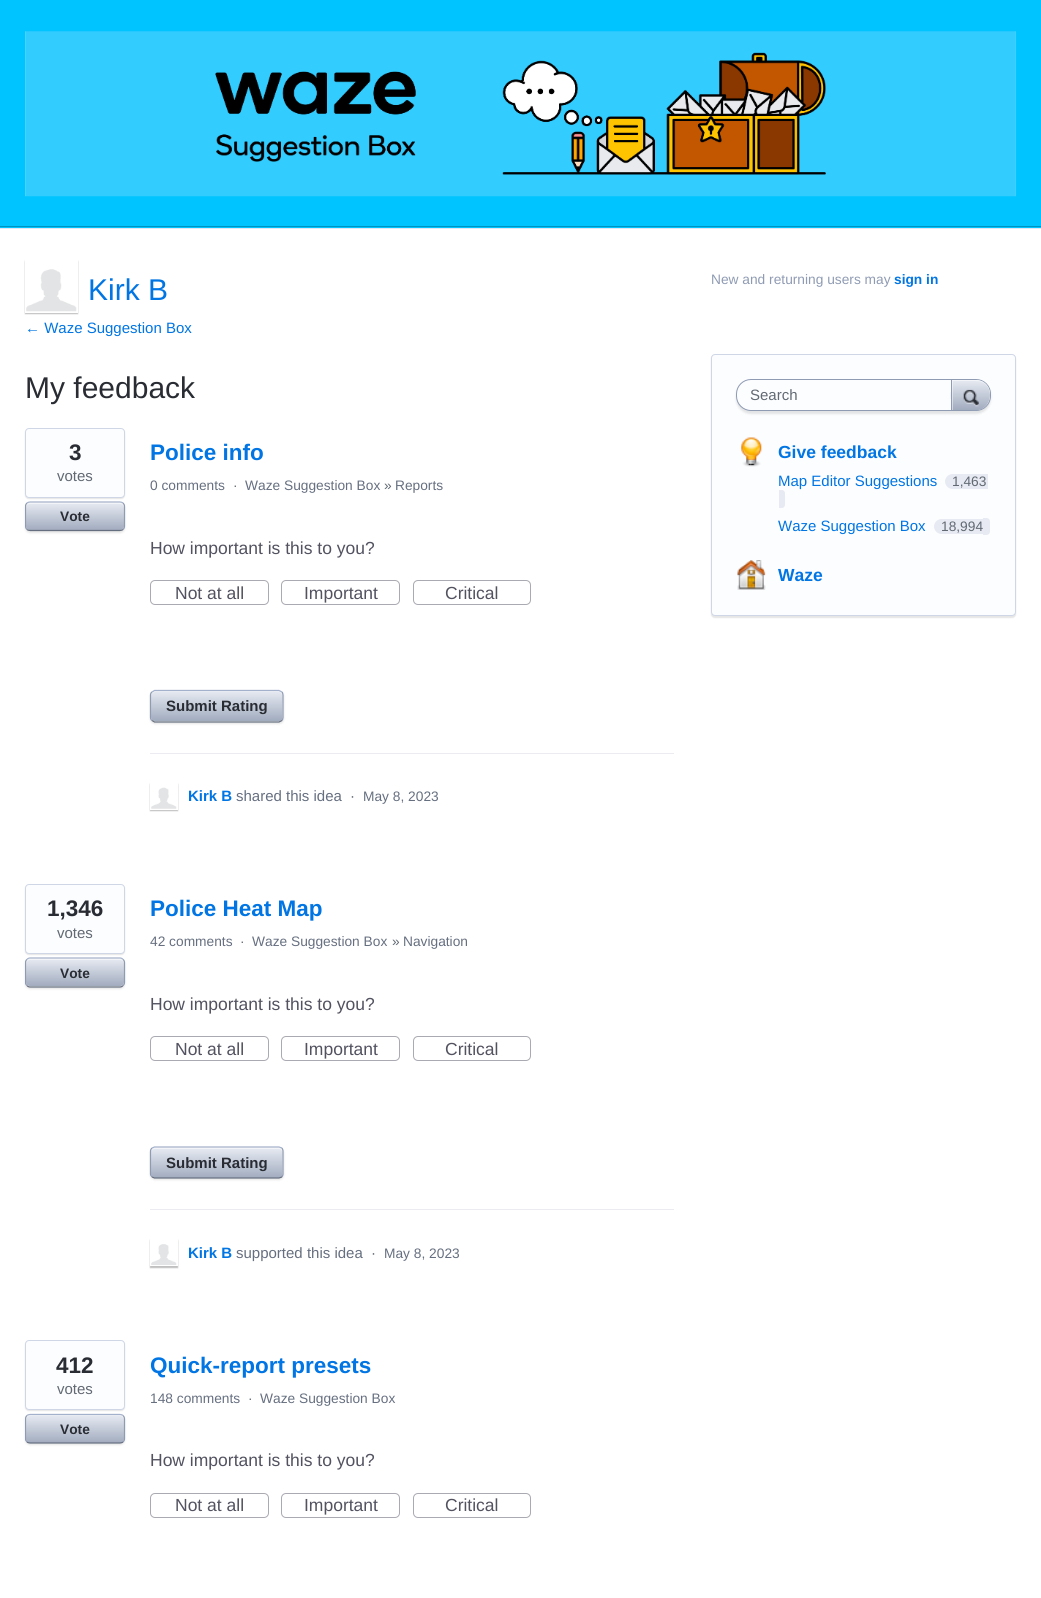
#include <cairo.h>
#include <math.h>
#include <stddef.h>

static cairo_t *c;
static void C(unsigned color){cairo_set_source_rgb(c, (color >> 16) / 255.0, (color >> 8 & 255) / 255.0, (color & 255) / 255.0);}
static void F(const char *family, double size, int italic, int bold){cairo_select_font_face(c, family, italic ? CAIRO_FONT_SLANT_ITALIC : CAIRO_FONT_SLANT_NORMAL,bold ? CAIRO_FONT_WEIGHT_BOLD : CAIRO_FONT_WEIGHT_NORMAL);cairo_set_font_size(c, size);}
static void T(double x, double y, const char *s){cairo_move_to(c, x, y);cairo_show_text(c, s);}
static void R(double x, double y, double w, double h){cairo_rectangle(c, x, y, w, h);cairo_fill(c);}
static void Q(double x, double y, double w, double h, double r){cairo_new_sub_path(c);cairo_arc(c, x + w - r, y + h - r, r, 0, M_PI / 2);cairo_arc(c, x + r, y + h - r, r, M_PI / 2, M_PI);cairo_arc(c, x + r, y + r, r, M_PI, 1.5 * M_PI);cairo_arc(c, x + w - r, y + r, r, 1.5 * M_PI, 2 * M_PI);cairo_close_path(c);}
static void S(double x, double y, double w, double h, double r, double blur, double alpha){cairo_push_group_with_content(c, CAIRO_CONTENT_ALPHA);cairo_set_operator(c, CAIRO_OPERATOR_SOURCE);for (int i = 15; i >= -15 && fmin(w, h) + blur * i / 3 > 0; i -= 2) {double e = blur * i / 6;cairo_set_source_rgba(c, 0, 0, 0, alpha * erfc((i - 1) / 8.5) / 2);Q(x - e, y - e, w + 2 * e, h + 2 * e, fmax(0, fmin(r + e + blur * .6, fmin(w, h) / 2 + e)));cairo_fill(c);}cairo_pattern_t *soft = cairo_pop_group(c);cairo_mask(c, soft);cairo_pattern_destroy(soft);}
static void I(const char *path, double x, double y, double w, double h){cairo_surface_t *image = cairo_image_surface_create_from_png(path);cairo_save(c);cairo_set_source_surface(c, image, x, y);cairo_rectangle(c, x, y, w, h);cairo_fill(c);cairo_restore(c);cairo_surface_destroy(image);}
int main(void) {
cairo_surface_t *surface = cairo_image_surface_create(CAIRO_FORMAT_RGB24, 1041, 1598);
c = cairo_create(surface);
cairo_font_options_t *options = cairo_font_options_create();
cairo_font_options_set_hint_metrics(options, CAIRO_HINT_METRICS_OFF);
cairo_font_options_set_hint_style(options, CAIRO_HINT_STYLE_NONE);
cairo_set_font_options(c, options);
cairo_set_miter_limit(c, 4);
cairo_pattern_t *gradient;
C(0xffffff);
cairo_paint(c);
C(0x00c4ff);
R(0,0,1041,228);
C(0x0093bf);
R(0,226,1041,1);
I("1.png",25,31,992,166);
C(0xe3e8f2);
R(0,228,1041,1);
cairo_save(c);
cairo_set_fill_rule(c,CAIRO_FILL_RULE_EVEN_ODD);
cairo_new_path(c);
cairo_move_to(c,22,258);
cairo_line_to(c,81,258);
cairo_line_to(c,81,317);
cairo_line_to(c,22,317);
cairo_close_path(c);
cairo_move_to(c,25,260);
cairo_line_to(c,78,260);
cairo_line_to(c,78,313);
cairo_line_to(c,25,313);
cairo_close_path(c);
cairo_clip(c);
C(0x000000);
S(25,261,53,53,0,.5,.25);
cairo_restore(c);
cairo_rectangle(c,25.5,260.5,52,52);
C(0xffffff);
cairo_set_line_width(c,1);
cairo_stroke(c);
I("2.png",26,269,51,43);
F("Liberation Sans",30,0,0);
C(0x0075e3);
T(88,300,"Kirk B");
F("Liberation Sans",15,0,0);
T(25,333,"← Waze Suggestion Box");
F("Liberation Sans",30,0,0);
C(0x292c33);
T(25,398,"My feedback");
C(0x000000);
S(25,429,100,70,4,.5,.1);
C(0xfcfdff);
Q(25.5,428.5,99,69,3.5);
cairo_fill_preserve(c);
C(0xcfd7e6);
cairo_stroke(c);
F("Liberation Sans",22.5,0,1);
C(0x292c33);
T(69,460,"3");
F("Liberation Sans",15,0,0);
C(0x616973);
T(57,481,"votes");
C(0x000000);
S(25,503,100,30,5,1,.1);
gradient = cairo_pattern_create_linear(26,503,26,530);
cairo_pattern_add_color_stop_rgba(gradient,0,0.902,0.918,0.949,1);
cairo_pattern_add_color_stop_rgba(gradient,1,0.635,0.675,0.749,1);
cairo_set_source(c,gradient);
cairo_pattern_destroy(gradient);
Q(26,503,98,27,4);
cairo_fill(c);
cairo_set_source_rgba(c,1,1,1,0.5);
cairo_new_path(c);
cairo_move_to(c,30,504);
cairo_line_to(c,120,504);
cairo_curve_to(c,122,504,124,505,124,508);
cairo_curve_to(c,124,499,109,503,105,503);
cairo_line_to(c,45,503);
cairo_curve_to(c,41,503,26,499,26,508);
cairo_curve_to(c,26,505,28,504,30,504);
cairo_close_path(c);
cairo_fill(c);
cairo_new_path(c);
cairo_move_to(c,27,503);
cairo_curve_to(c,27.5,502.5,29,502,30,502);
cairo_line_to(c,120,502);
cairo_curve_to(c,121,502,122.5,502.5,123,503);
C(0xa3b1cc);
cairo_set_line_width(c,1.2);
cairo_stroke(c);
cairo_new_path(c);
cairo_move_to(c,123,503);
cairo_curve_to(c,124,504,124.5,505,124.5,506);
cairo_line_to(c,124.5,526);
cairo_curve_to(c,124.5,527.5,124,528.5,123,529.5);
C(0x8f9bb3);
cairo_stroke(c);
cairo_new_path(c);
cairo_move_to(c,123,529.5);
cairo_curve_to(c,122.5,530,121,530.5,120,530.5);
cairo_line_to(c,30,530.5);
cairo_curve_to(c,29,530.5,27.5,530,27,529.5);
C(0x666f80);
cairo_stroke(c);
cairo_save(c);
cairo_rectangle(c,25,260,991,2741);
cairo_clip(c);
cairo_new_path(c);
cairo_move_to(c,27,529.5);
cairo_curve_to(c,26,528.5,25.5,527.5,25.5,526);
cairo_line_to(c,25.5,506);
cairo_curve_to(c,25.5,505,26,504,27,503);
C(0x8f9bb3);
cairo_stroke(c);
cairo_restore(c);
F("Liberation Sans",13.75,0,1);
C(0x292c33);
T(60,521,"Vote");
F("Liberation Sans",22.5,0,1);
C(0x0075e3);
T(150,460,"Police info");
F("Liberation Sans",13.75,0,0);
C(0x666f80);
T(150,490,"0 comments");
C(0x616973);
T(233,490,"·");
C(0x666f80);
T(245,490,"Waze Suggestion Box");
C(0x616973);
T(384,490,"»");
C(0x666f80);
T(395,490,"Reports");
C(0xebebf1);
R(150,753,524,1);
F("Liberation Sans",17.5,0,0);
C(0x525260);
T(150,554,"How important is this to you?");
Q(150.5,580.5,118,24,4.5);
C(0xaaaab2);
cairo_set_line_width(c,1);
cairo_stroke(c);
C(0x525260);
T(175,599,"Not at all");
Q(281.5,580.5,118,24,4.5);
C(0xaaaab2);
cairo_stroke(c);
C(0x525260);
T(304,599,"Important");
Q(413.5,580.5,117,24,4.5);
C(0xaaaab2);
cairo_stroke(c);
C(0x525260);
T(445,599,"Critical");
C(0x000000);
S(150,691,134,33,5,1,.1);
gradient = cairo_pattern_create_linear(151,691,151,721);
cairo_pattern_add_color_stop_rgba(gradient,0,0.902,0.918,0.949,1);
cairo_pattern_add_color_stop_rgba(gradient,1,0.635,0.675,0.749,1);
cairo_set_source(c,gradient);
cairo_pattern_destroy(gradient);
Q(151,691,132,30,4);
cairo_fill(c);
cairo_set_source_rgba(c,1,1,1,0.5);
cairo_new_path(c);
cairo_move_to(c,155,692);
cairo_line_to(c,279,692);
cairo_curve_to(c,284,692,282,702,282,704);
cairo_line_to(c,282,720);
cairo_curve_to(c,283,719,283,718,283,717);
cairo_line_to(c,283,695);
cairo_curve_to(c,283,693,281,691,279,691);
cairo_line_to(c,155,691);
cairo_curve_to(c,153,691,151,693,151,695);
cairo_line_to(c,151,696);
cairo_curve_to(c,151,694,153,692,155,692);
cairo_close_path(c);
cairo_fill(c);
cairo_new_path(c);
cairo_move_to(c,152,692);
cairo_line_to(c,154.5,690.5);
cairo_line_to(c,258,690.5);
cairo_line_to(c,279,690.5);
cairo_line_to(c,282,692);
C(0xa3b1cc);
cairo_set_line_width(c,1.2);
cairo_stroke(c);
cairo_new_path(c);
cairo_move_to(c,282,692);
cairo_curve_to(c,282.5,692.5,283,694,283,695);
cairo_line_to(c,283,717.5);
cairo_curve_to(c,283,718.5,282.5,720,282,720.5);
C(0x8f9bb3);
cairo_stroke(c);
cairo_new_path(c);
cairo_move_to(c,282,720.5);
cairo_line_to(c,279,722);
cairo_line_to(c,154.5,722);
cairo_line_to(c,152,720.5);
C(0x666f80);
cairo_stroke(c);
cairo_new_path(c);
cairo_move_to(c,152,720.5);
cairo_curve_to(c,151,720,150.5,718.5,150.5,717.5);
cairo_line_to(c,150.5,695);
cairo_curve_to(c,150.5,694,151,692.5,152,692);
C(0x8f9bb3);
cairo_stroke(c);
F("Liberation Sans",15,0,1);
C(0x292c33);
T(166,711,"Submit Rating");
cairo_save(c);
cairo_set_fill_rule(c,CAIRO_FILL_RULE_EVEN_ODD);
cairo_new_path(c);
cairo_move_to(c,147,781);
cairo_line_to(c,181,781);
cairo_line_to(c,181,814);
cairo_line_to(c,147,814);
cairo_close_path(c);
cairo_move_to(c,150,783);
cairo_line_to(c,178,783);
cairo_line_to(c,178,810);
cairo_line_to(c,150,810);
cairo_close_path(c);
cairo_clip(c);
C(0x000000);
S(150,784,28,27,0,.5,.25);
cairo_restore(c);
cairo_rectangle(c,150.5,783.5,27,26);
C(0xffffff);
cairo_set_line_width(c,1);
cairo_stroke(c);
I("3.png",151,787,26,22);
C(0x0075e3);
T(188,801,"Kirk B");
F("Liberation Sans",15,0,0);
C(0x666f80);
T(236,801,"shared this idea");
C(0x616973);
T(350,801,"·");
F("Liberation Sans",13.75,0,0);
C(0x666f80);
T(363,801,"May 8, 2023");
C(0x000000);
S(25,885,100,70,4,.5,.1);
C(0xfcfdff);
Q(25.5,884.5,99,69,3.5);
cairo_fill_preserve(c);
C(0xcfd7e6);
cairo_stroke(c);
F("Liberation Sans",22.5,0,1);
C(0x292c33);
T(47,916,"1,346");
F("Liberation Sans",15,0,0);
C(0x616973);
T(57,938,"votes");
C(0x000000);
S(25,959,100,30,5,1,.1);
gradient = cairo_pattern_create_linear(26,959,26,986);
cairo_pattern_add_color_stop_rgba(gradient,0,0.902,0.918,0.949,1);
cairo_pattern_add_color_stop_rgba(gradient,1,0.635,0.675,0.749,1);
cairo_set_source(c,gradient);
cairo_pattern_destroy(gradient);
Q(26,959,98,27,4);
cairo_fill(c);
cairo_set_source_rgba(c,1,1,1,0.5);
cairo_new_path(c);
cairo_move_to(c,30,960);
cairo_line_to(c,120,960);
cairo_curve_to(c,122,960,124,962,124,964);
cairo_curve_to(c,124,955,109,959,105,959);
cairo_line_to(c,45,959);
cairo_curve_to(c,41,959,26,955,26,964);
cairo_curve_to(c,26,962,28,960,30,960);
cairo_close_path(c);
cairo_fill(c);
cairo_new_path(c);
cairo_move_to(c,27,959.5);
cairo_curve_to(c,27.5,958.5,29,958,30,958);
cairo_line_to(c,120,958);
cairo_curve_to(c,121,958,122.5,958.5,123,959.5);
C(0xa3b1cc);
cairo_set_line_width(c,1.2);
cairo_stroke(c);
cairo_new_path(c);
cairo_move_to(c,123,959.5);
cairo_curve_to(c,124,960,124.5,961.5,124.5,962.5);
cairo_line_to(c,124.5,982.5);
cairo_curve_to(c,124.5,983.5,124,985,123,985.5);
C(0x8f9bb3);
cairo_stroke(c);
cairo_new_path(c);
cairo_move_to(c,123,985.5);
cairo_curve_to(c,122.5,986.5,121,987,120,987);
cairo_line_to(c,30,987);
cairo_curve_to(c,29,987,27.5,986.5,27,985.5);
C(0x666f80);
cairo_stroke(c);
cairo_save(c);
cairo_rectangle(c,25,260,991,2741);
cairo_clip(c);
cairo_new_path(c);
cairo_move_to(c,27,985.5);
cairo_curve_to(c,26,985,25.5,983.5,25.5,982.5);
cairo_line_to(c,25.5,962.5);
cairo_curve_to(c,25.5,961.5,26,960,27,959.5);
C(0x8f9bb3);
cairo_stroke(c);
cairo_restore(c);
F("Liberation Sans",13.75,0,1);
C(0x292c33);
T(60,978,"Vote");
F("Liberation Sans",22.5,0,1);
C(0x0075e3);
T(150,916,"Police Heat Map");
F("Liberation Sans",13.75,0,0);
C(0x666f80);
T(150,946,"42 comments");
C(0x616973);
T(240,946,"·");
C(0x666f80);
T(252,946,"Waze Suggestion Box");
C(0x616973);
T(392,946,"»");
C(0x666f80);
T(403,946,"Navigation");
C(0xebebf1);
R(150,1209,524,1);
F("Liberation Sans",17.5,0,0);
C(0x525260);
T(150,1010,"How important is this to you?");
Q(150.5,1036.5,118,24,4.5);
C(0xaaaab2);
cairo_set_line_width(c,1);
cairo_stroke(c);
C(0x525260);
T(175,1055,"Not at all");
Q(281.5,1036.5,118,24,4.5);
C(0xaaaab2);
cairo_stroke(c);
C(0x525260);
T(304,1055,"Important");
Q(413.5,1036.5,117,24,4.5);
C(0xaaaab2);
cairo_stroke(c);
C(0x525260);
T(445,1055,"Critical");
C(0x000000);
S(150,1148,134,32,5,1,.1);
gradient = cairo_pattern_create_linear(151,1148,151,1178);
cairo_pattern_add_color_stop_rgba(gradient,0,0.902,0.918,0.949,1);
cairo_pattern_add_color_stop_rgba(gradient,1,0.635,0.675,0.749,1);
cairo_set_source(c,gradient);
cairo_pattern_destroy(gradient);
Q(151,1148,132,30,4);
cairo_fill(c);
cairo_set_source_rgba(c,1,1,1,0.5);
cairo_new_path(c);
cairo_move_to(c,155,1149);
cairo_line_to(c,279,1149);
cairo_curve_to(c,284,1149,282,1157,282,1160);
cairo_line_to(c,282,1177);
cairo_curve_to(c,282,1176,283,1175,283,1174);
cairo_line_to(c,283,1152);
cairo_curve_to(c,283,1150,281,1148,279,1148);
cairo_line_to(c,155,1148);
cairo_curve_to(c,153,1148,151,1150,151,1152);
cairo_curve_to(c,151,1150,153,1149,155,1149);
cairo_close_path(c);
cairo_fill(c);
cairo_new_path(c);
cairo_move_to(c,152,1148);
cairo_line_to(c,154.5,1147);
cairo_line_to(c,258,1147);
cairo_line_to(c,279,1147);
cairo_line_to(c,282,1148);
C(0xa3b1cc);
cairo_set_line_width(c,1.2);
cairo_stroke(c);
cairo_new_path(c);
cairo_move_to(c,282,1148);
cairo_curve_to(c,282.5,1149,283,1150,283,1151);
cairo_line_to(c,283,1174);
cairo_curve_to(c,283,1175,282.5,1176,282,1177);
C(0x8f9bb3);
cairo_stroke(c);
cairo_new_path(c);
cairo_move_to(c,282,1177);
cairo_line_to(c,279,1178);
cairo_line_to(c,154.5,1178);
cairo_line_to(c,152,1177);
C(0x666f80);
cairo_stroke(c);
cairo_new_path(c);
cairo_move_to(c,152,1177);
cairo_curve_to(c,151,1176,150.5,1175,150.5,1174);
cairo_line_to(c,150.5,1151);
cairo_curve_to(c,150.5,1150,151,1149,152,1148);
C(0x8f9bb3);
cairo_stroke(c);
F("Liberation Sans",15,0,1);
C(0x292c33);
T(166,1168,"Submit Rating");
cairo_save(c);
cairo_set_fill_rule(c,CAIRO_FILL_RULE_EVEN_ODD);
cairo_new_path(c);
cairo_move_to(c,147,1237);
cairo_line_to(c,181,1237);
cairo_line_to(c,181,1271);
cairo_line_to(c,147,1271);
cairo_close_path(c);
cairo_move_to(c,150,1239);
cairo_line_to(c,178,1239);
cairo_line_to(c,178,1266);
cairo_line_to(c,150,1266);
cairo_close_path(c);
cairo_clip(c);
C(0x000000);
S(150,1240,28,28,0,.5,.25);
cairo_restore(c);
cairo_rectangle(c,150.5,1239.5,27,26);
C(0xffffff);
cairo_set_line_width(c,1);
cairo_stroke(c);
I("4.png",151,1244,26,21);
C(0x0075e3);
T(188,1258,"Kirk B");
F("Liberation Sans",15,0,0);
C(0x666f80);
T(236,1258,"supported this idea");
C(0x616973);
T(371,1258,"·");
F("Liberation Sans",13.75,0,0);
C(0x666f80);
T(384,1258,"May 8, 2023");
C(0x000000);
S(25,1341,100,70,4,.5,.1);
C(0xfcfdff);
Q(25.5,1340.5,99,69,3.5);
cairo_fill_preserve(c);
C(0xcfd7e6);
cairo_stroke(c);
F("Liberation Sans",22.5,0,1);
C(0x292c33);
T(56,1373,"412");
F("Liberation Sans",15,0,0);
C(0x616973);
T(57,1394,"votes");
C(0x000000);
S(25,1415,100,30,5,1,.1);
gradient = cairo_pattern_create_linear(26,1415,26,1443);
cairo_pattern_add_color_stop_rgba(gradient,0,0.902,0.918,0.949,1);
cairo_pattern_add_color_stop_rgba(gradient,1,0.635,0.675,0.749,1);
cairo_set_source(c,gradient);
cairo_pattern_destroy(gradient);
Q(26,1415,98,28,4);
cairo_fill(c);
cairo_set_source_rgba(c,1,1,1,0.5);
cairo_new_path(c);
cairo_move_to(c,30,1416);
cairo_line_to(c,120,1416);
cairo_curve_to(c,122,1416,124,1418,124,1420);
cairo_curve_to(c,124,1411,109,1415,105,1415);
cairo_line_to(c,45,1415);
cairo_curve_to(c,41,1415,26,1411,26,1420);
cairo_curve_to(c,26,1418,28,1416,30,1416);
cairo_close_path(c);
cairo_fill(c);
cairo_new_path(c);
cairo_move_to(c,27,1415.5);
cairo_curve_to(c,27.5,1415,29,1414.5,30,1414.5);
cairo_line_to(c,120,1414.5);
cairo_curve_to(c,121,1414.5,122.5,1415,123,1415.5);
C(0xa3b1cc);
cairo_set_line_width(c,1.2);
cairo_stroke(c);
cairo_new_path(c);
cairo_move_to(c,123,1415.5);
cairo_curve_to(c,124,1416.5,124.5,1417.5,124.5,1419);
cairo_line_to(c,124.5,1439);
cairo_curve_to(c,124.5,1440,124,1441,123,1442);
C(0x8f9bb3);
cairo_stroke(c);
cairo_new_path(c);
cairo_move_to(c,123,1442);
cairo_curve_to(c,122.5,1442.5,121,1443,120,1443);
cairo_line_to(c,30,1443);
cairo_curve_to(c,29,1443,27.5,1442.5,27,1442);
C(0x666f80);
cairo_stroke(c);
cairo_save(c);
cairo_rectangle(c,25,260,991,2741);
cairo_clip(c);
cairo_new_path(c);
cairo_move_to(c,27,1442);
cairo_curve_to(c,26,1441,25.5,1440,25.5,1439);
cairo_line_to(c,25.5,1419);
cairo_curve_to(c,25.5,1417.5,26,1416.5,27,1415.5);
C(0x8f9bb3);
cairo_stroke(c);
cairo_restore(c);
F("Liberation Sans",13.75,0,1);
C(0x292c33);
T(60,1434,"Vote");
F("Liberation Sans",22.5,0,1);
C(0x0075e3);
T(150,1373,"Quick-report presets");
F("Liberation Sans",13.75,0,0);
C(0x666f80);
T(150,1403,"148 comments");
C(0x616973);
T(248,1403,"·");
C(0x666f80);
T(260,1403,"Waze Suggestion Box");
F("Liberation Sans",17.5,0,0);
C(0x525260);
T(150,1466,"How important is this to you?");
Q(150.5,1493.5,118,24,4.5);
C(0xaaaab2);
cairo_set_line_width(c,1);
cairo_stroke(c);
C(0x525260);
T(175,1511,"Not at all");
Q(281.5,1493.5,118,24,4.5);
C(0xaaaab2);
cairo_stroke(c);
C(0x525260);
T(304,1511,"Important");
Q(413.5,1493.5,117,24,4.5);
C(0xaaaab2);
cairo_stroke(c);
C(0x525260);
T(445,1511,"Critical");
F("Liberation Sans",13.75,0,0);
C(0x8f9bb3);
T(711,284,"New and returning users may");
F("Liberation Sans",13.75,0,1);
C(0x0075e3);
T(894,284,"sign in");
C(0x000000);
S(711,355,305,263,4,.5,.1);
C(0xfcfdff);
Q(711.5,354.5,304,261,3.5);
cairo_fill_preserve(c);
C(0xcfd7e6);
cairo_stroke(c);
C(0x000000);
S(736,381,255,33,15,1,.1);
C(0xfcfdff);
Q(736.5,379.5,254,31,14.5);
cairo_fill_preserve(c);
C(0x8f9bb3);
cairo_stroke(c);
F("Liberation Sans",15,0,0);
C(0x616973);
T(750,400,"Search");
cairo_save(c);
cairo_rectangle(c,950,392,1,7);
cairo_clip(c);
C(0x000000);
S(951,380,40,31,15,1,.1);
cairo_restore(c);
gradient = cairo_pattern_create_linear(953,380,953,410);
cairo_pattern_add_color_stop_rgba(gradient,0,0.902,0.918,0.949,1);
cairo_pattern_add_color_stop_rgba(gradient,1,0.635,0.675,0.749,1);
cairo_set_source(c,gradient);
cairo_pattern_destroy(gradient);
cairo_new_path(c);
cairo_move_to(c,952.5,380);
cairo_line_to(c,952.5,410);
cairo_line_to(c,968,410);
cairo_curve_to(c,972.5,410,977.5,411,981.5,409);
cairo_curve_to(c,995,402,992,380,976,380);
cairo_close_path(c);
cairo_fill(c);
cairo_set_source_rgba(c,1,1,1,0.5);
cairo_new_path(c);
cairo_move_to(c,952.5,380);
cairo_line_to(c,976,380);
cairo_curve_to(c,983.5,380,990,386.5,990,394);
cairo_line_to(c,990,395);
cairo_curve_to(c,990,387,984,381,976,381);
cairo_line_to(c,952.5,381);
cairo_close_path(c);
cairo_fill(c);
C(0x8f9bb3);
cairo_new_path(c);
cairo_move_to(c,990,395);
cairo_curve_to(c,990,403,984,410,976,410);
cairo_curve_to(c,984.5,410,990,403,990,395);
cairo_close_path(c);
cairo_fill(c);
R(951,380,1,30);
I("5.png",963,389,16,18);
I("6.png",741,437,21,30);
F("Liberation Sans",17.5,0,1);
C(0x0075e3);
T(778,458,"Give feedback");
F("Liberation Sans",15,0,0);
T(778,486,"Map Editor Suggestions");
C(0xe7eaf2);
cairo_new_path(c);
cairo_move_to(c,952.5,474);
cairo_line_to(c,988,474);
cairo_line_to(c,988,489);
cairo_line_to(c,952.5,489);
cairo_curve_to(c,948.5,489,945,485.5,945,481.5);
cairo_curve_to(c,945,477.5,948.5,474,952.5,474);
cairo_close_path(c);
cairo_fill(c);
F("Liberation Sans",13.75,0,0);
C(0x616973);
T(952,486,"1,463");
C(0xe7eaf2);
cairo_new_path(c);
cairo_move_to(c,779,490);
cairo_line_to(c,782,490);
cairo_curve_to(c,783.5,490,785,491.5,785,493);
cairo_line_to(c,785,505);
cairo_curve_to(c,785,506.5,783.5,508,782,508);
cairo_line_to(c,779,508);
cairo_close_path(c);
cairo_fill(c);
F("Liberation Sans",15,0,0);
C(0x0075e3);
T(778,531,"Waze Suggestion Box");
C(0xe7eaf2);
cairo_new_path(c);
cairo_move_to(c,941.5,519);
cairo_line_to(c,983,519);
cairo_line_to(c,983,534);
cairo_line_to(c,941.5,534);
cairo_curve_to(c,937.5,534,934,530.5,934,526.5);
cairo_curve_to(c,934,522.5,937.5,519,941.5,519);
cairo_close_path(c);
cairo_fill(c);
F("Liberation Sans",13.75,0,0);
C(0x616973);
T(941,531,"18,994");
C(0xe7eaf2);
cairo_new_path(c);
cairo_move_to(c,983,518);
cairo_line_to(c,986.5,518);
cairo_curve_to(c,988.5,518,990,519.5,990,521.5);
cairo_line_to(c,990,531.5);
cairo_curve_to(c,990,533.5,988.5,535,986.5,535);
cairo_line_to(c,983,535);
cairo_close_path(c);
cairo_fill(c);
I("7.png",737,560,29,30);
F("Liberation Sans",17.5,0,1);
C(0x0075e3);
T(778,581,"Waze");
cairo_surface_write_to_png(surface, "o.png");
cairo_font_options_destroy(options);
cairo_destroy(c);
cairo_surface_destroy(surface);
return 0;
}
